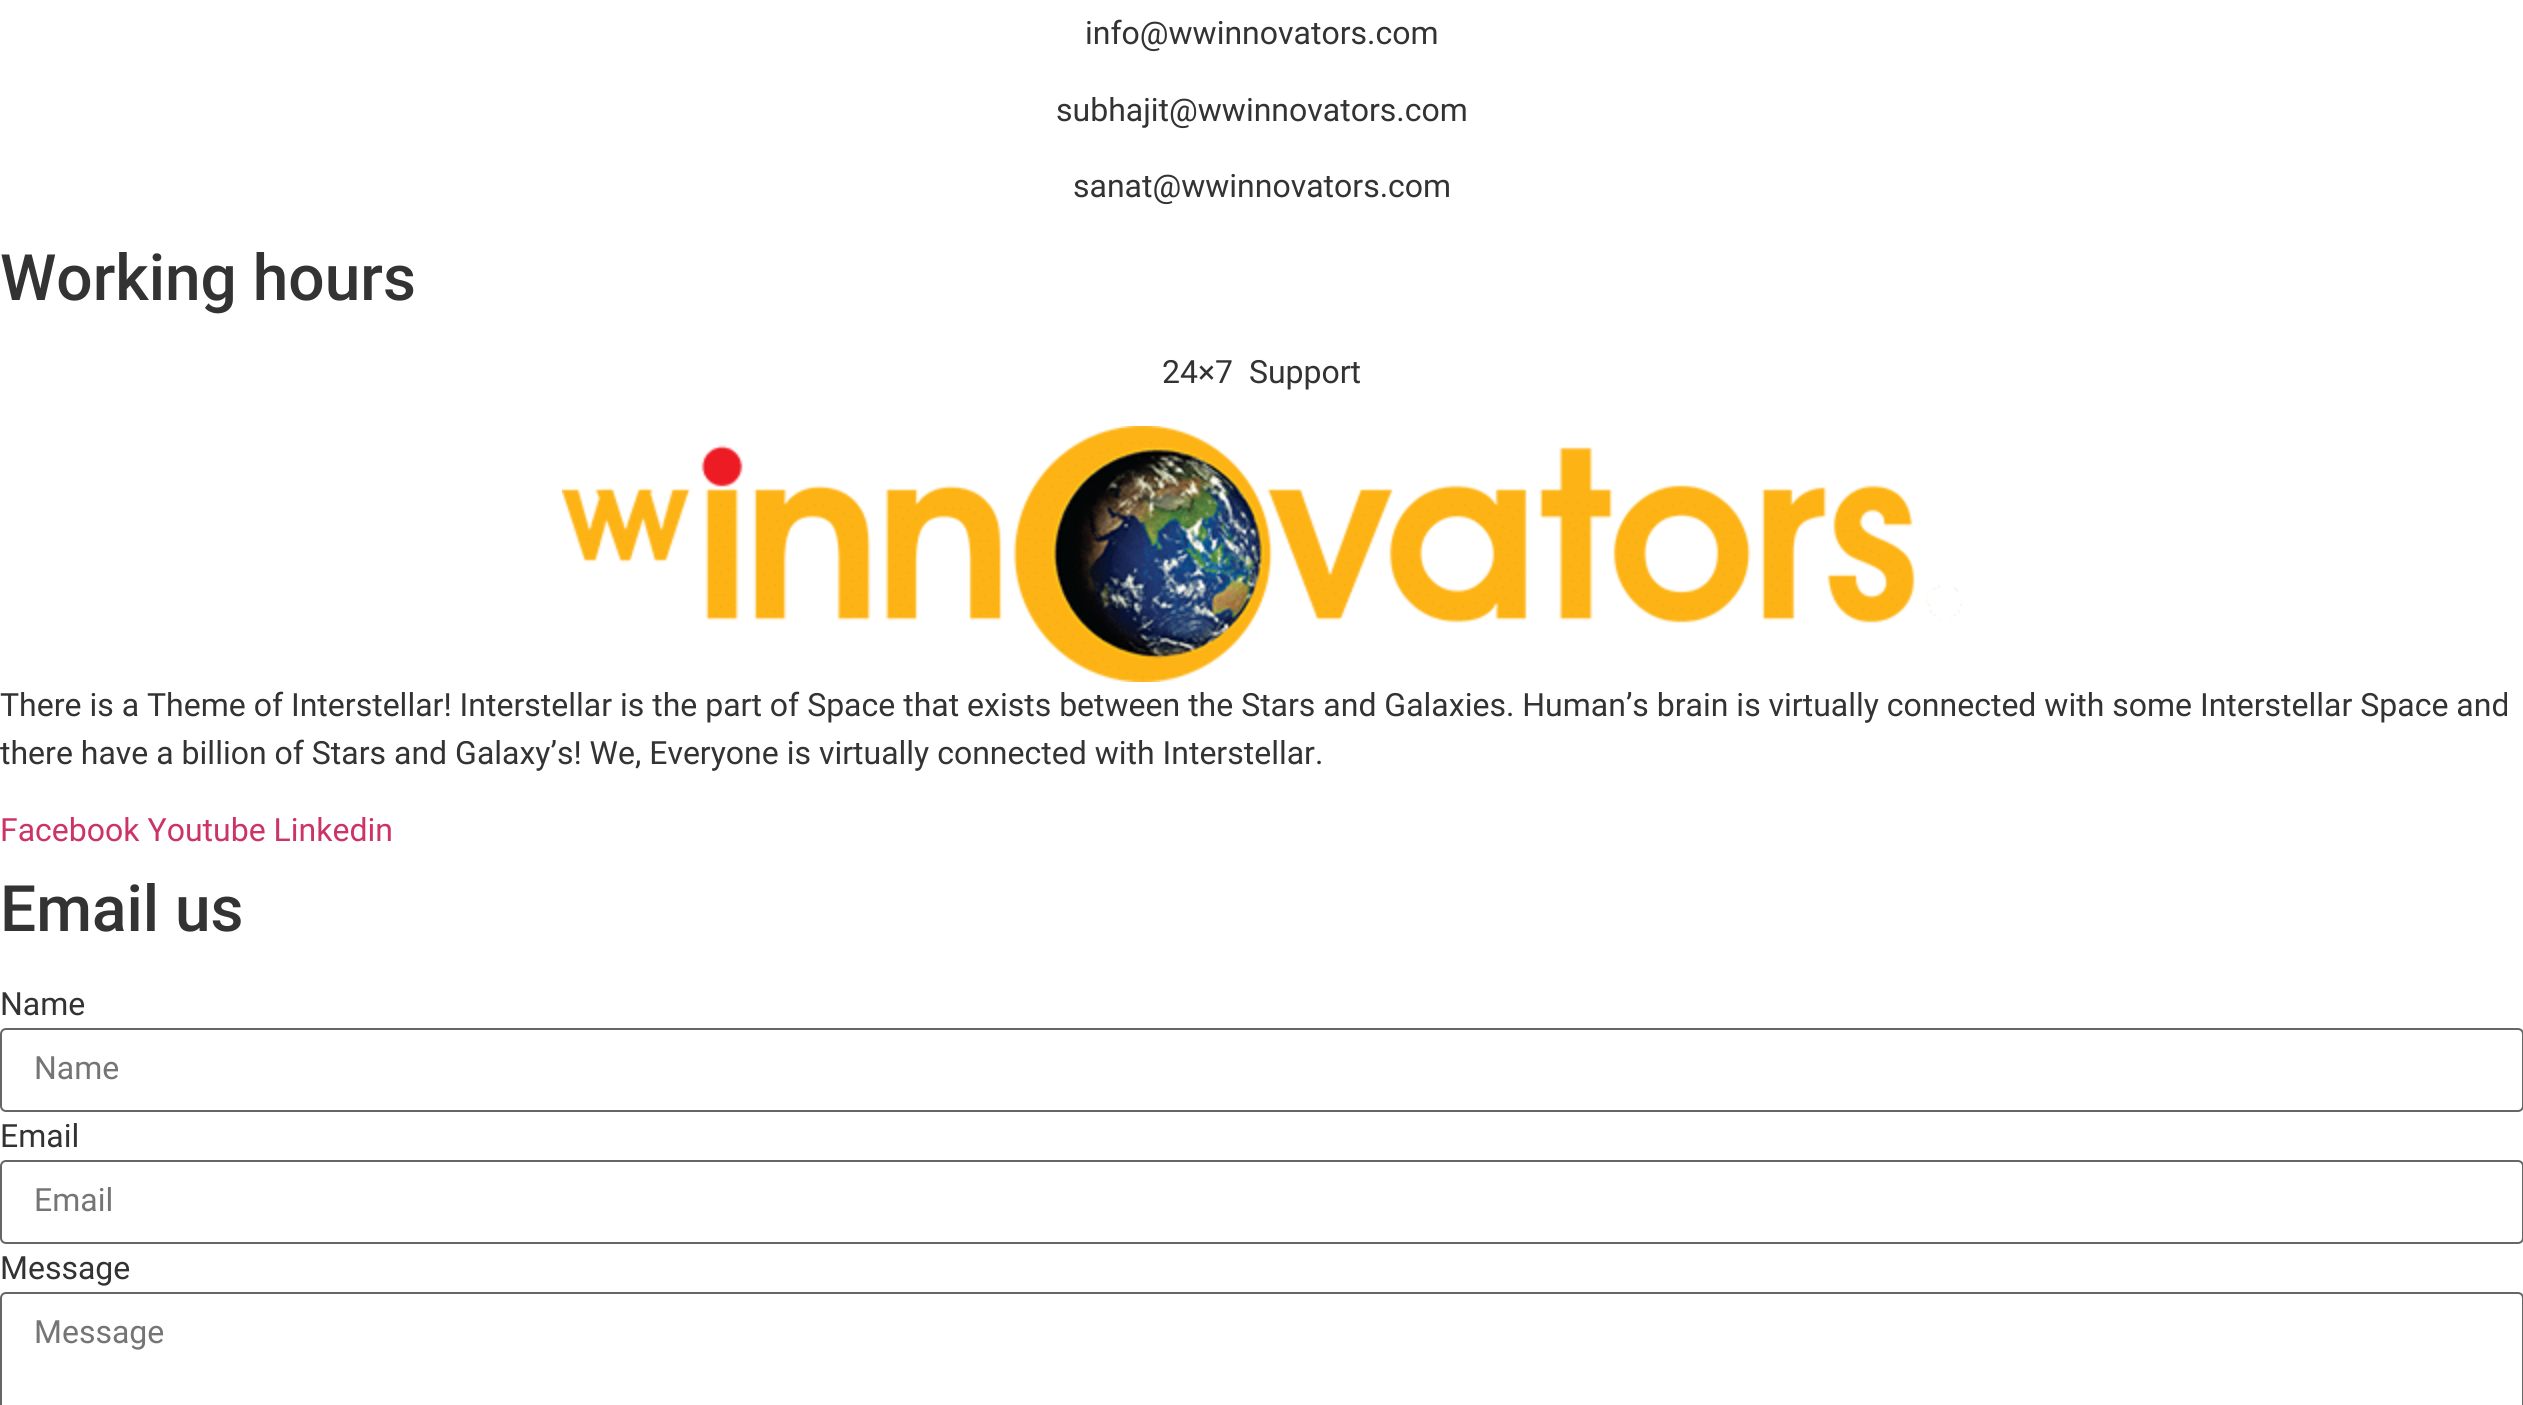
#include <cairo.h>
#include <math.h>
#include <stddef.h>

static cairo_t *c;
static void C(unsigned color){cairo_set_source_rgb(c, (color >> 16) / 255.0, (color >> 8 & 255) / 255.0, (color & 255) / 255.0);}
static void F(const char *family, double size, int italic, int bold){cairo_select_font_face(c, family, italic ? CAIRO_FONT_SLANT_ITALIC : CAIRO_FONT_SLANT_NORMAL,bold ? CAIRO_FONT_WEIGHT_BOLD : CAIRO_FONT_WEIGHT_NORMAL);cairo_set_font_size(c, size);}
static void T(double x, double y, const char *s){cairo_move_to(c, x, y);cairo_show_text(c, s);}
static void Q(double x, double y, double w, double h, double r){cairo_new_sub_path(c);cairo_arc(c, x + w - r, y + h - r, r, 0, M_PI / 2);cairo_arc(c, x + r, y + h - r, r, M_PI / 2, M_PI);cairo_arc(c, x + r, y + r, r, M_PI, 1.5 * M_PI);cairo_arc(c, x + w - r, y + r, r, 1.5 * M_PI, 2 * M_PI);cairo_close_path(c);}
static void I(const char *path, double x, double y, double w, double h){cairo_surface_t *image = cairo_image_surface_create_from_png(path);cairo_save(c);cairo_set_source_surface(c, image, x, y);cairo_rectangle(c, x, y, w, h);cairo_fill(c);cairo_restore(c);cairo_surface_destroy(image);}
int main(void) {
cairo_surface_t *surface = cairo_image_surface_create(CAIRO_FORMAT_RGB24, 2523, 1405);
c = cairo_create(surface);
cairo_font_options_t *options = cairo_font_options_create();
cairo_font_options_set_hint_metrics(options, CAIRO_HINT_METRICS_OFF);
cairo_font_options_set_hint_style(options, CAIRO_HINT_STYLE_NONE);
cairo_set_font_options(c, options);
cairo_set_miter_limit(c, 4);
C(0xffffff);
cairo_paint(c);
F("Roboto",32,0,0);
C(0x333333);
T(1085,44,"info@wwinnovators.com");
T(1056,121,"subhajit@wwinnovators.com");
T(1073,197,"sanat@wwinnovators.com");
F("Roboto Medium",64,0,0);
T(0,300,"Working hours");
F("Roboto",32,0,0);
T(1162,383,"24×7  Support");
I("1.png",562,426,1400,256);
T(0,716,"There is a Theme of Interstellar! Interstellar is the part of Space that exists between the Stars and Galaxies. Human’s brain is virtually connected with some Interstellar Space and");
T(0,764,"there have a billion of Stars and Galaxy’s! We, Everyone is virtually connected with Interstellar.");
C(0xcc3366);
T(0,841,"Facebook Youtube Linkedin");
F("Roboto Medium",64,0,0);
C(0x333333);
T(0,931,"Email us");
F("Roboto",32,0,0);
T(0,1015,"Name");
Q(1,1029,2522,82,5);
C(0x666666);
cairo_stroke(c);
C(0x757575);
T(34,1079,"Name");
C(0x333333);
T(0,1147,"Email");
Q(1,1161,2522,82,5);
C(0x666666);
cairo_stroke(c);
C(0x757575);
T(34,1211,"Email");
C(0x333333);
T(0,1279,"Message");
Q(1,1293,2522,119,5);
C(0x666666);
cairo_stroke(c);
C(0x757575);
T(34,1343,"Message");
cairo_surface_write_to_png(surface, "o.png");
cairo_font_options_destroy(options);
cairo_destroy(c);
cairo_surface_destroy(surface);
return 0;
}
